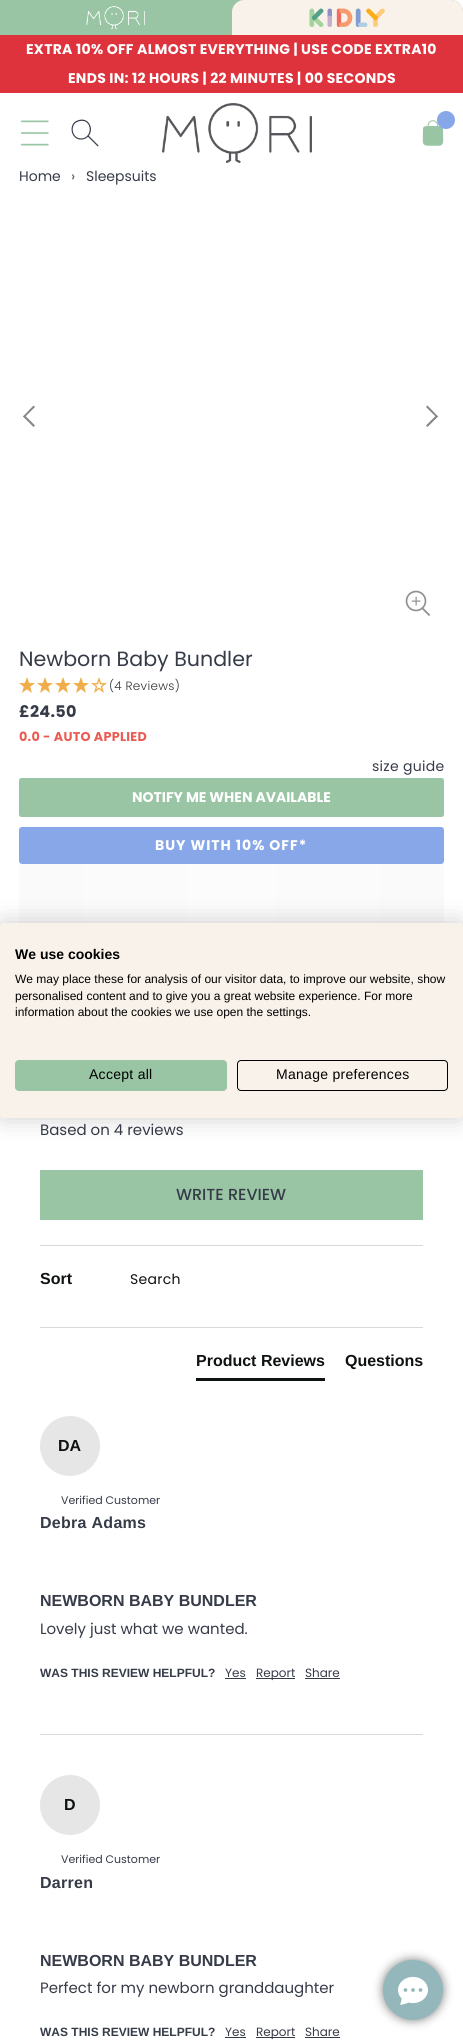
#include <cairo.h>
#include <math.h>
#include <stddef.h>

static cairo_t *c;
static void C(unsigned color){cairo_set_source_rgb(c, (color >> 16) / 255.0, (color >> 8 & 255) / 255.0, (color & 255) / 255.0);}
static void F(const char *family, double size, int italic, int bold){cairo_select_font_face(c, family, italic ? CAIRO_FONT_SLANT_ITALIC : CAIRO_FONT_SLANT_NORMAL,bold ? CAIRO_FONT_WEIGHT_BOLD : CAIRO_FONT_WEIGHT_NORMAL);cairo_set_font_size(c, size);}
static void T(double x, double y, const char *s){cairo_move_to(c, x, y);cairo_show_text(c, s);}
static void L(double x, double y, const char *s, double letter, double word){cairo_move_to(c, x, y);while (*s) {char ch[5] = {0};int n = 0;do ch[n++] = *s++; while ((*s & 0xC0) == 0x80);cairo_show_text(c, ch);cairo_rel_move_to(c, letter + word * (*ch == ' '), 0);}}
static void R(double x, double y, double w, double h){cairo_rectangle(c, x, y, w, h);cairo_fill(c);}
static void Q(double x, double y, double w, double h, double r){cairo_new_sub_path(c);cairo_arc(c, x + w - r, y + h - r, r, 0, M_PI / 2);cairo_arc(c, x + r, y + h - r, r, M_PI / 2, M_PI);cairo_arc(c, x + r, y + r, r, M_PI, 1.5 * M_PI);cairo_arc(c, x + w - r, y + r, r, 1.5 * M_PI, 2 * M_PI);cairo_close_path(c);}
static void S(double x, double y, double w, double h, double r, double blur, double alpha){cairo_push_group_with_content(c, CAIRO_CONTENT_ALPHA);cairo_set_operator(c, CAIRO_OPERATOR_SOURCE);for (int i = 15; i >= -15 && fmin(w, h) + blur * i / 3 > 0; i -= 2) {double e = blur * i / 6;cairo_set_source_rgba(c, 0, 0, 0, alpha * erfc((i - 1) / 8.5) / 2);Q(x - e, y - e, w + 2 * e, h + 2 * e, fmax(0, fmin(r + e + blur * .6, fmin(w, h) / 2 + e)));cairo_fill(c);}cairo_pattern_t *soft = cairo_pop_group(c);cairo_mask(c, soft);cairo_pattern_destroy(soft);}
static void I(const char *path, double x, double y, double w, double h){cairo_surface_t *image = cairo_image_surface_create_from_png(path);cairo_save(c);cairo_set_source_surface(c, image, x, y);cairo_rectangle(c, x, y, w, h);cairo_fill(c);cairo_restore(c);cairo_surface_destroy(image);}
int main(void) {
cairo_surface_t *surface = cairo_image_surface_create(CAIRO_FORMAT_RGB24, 463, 2040);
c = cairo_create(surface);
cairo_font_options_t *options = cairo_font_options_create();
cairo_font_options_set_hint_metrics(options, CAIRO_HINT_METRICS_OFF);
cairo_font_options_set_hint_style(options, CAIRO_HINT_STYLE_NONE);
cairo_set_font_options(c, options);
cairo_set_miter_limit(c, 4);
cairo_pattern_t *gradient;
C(0xffffff);
cairo_paint(c);
C(0x99c5a4);
cairo_new_path(c);
cairo_move_to(c,0,0);
cairo_line_to(c,451,0);
cairo_curve_to(c,457.5,0,463,5.5,463,12);
cairo_line_to(c,463,35);
cairo_line_to(c,0,35);
cairo_close_path(c);
cairo_fill(c);
I("1.png",86,6,59,24);
C(0xf8f2eb);
cairo_new_path(c);
cairo_move_to(c,244,0);
cairo_line_to(c,451,0);
cairo_curve_to(c,457.5,0,463,5.5,463,12);
cairo_line_to(c,463,35);
cairo_line_to(c,232,35);
cairo_line_to(c,232,12);
cairo_curve_to(c,232,5.5,237.5,0,244,0);
cairo_close_path(c);
cairo_fill(c);
I("2.png",309,8,76,19);
C(0xde333c);
R(0,35,463,58);
F("Poppins",14,0,1);
C(0xffffff);
L(26,54,"EXTRA 10% OFF ALMOST EVERYTHING | USE CODE EXTRA10",.28,0);
L(68,83,"ENDS IN: 12 HOURS | 22 MINUTES | 00 SECONDS",.28,0);
I("3.png",20,120,29,26);
I("4.png",71,119,28,28);
I("5.png",162,103,150,60);
I("6.png",422,120,22,26);
C(0x88a7e8);
cairo_arc(c,446,120,9,0,2 * M_PI);
cairo_fill(c);
F("Poppins",14,0,0);
C(0x363b48);
T(19,181,"Home");
F("Poppins Medium",14,0,0);
C(0x676767);
L(71,181,"›",.28,0);
F("Poppins",14,0,0);
C(0x363b48);
T(86,181,"Sleepsuits");
C(0x868686);
cairo_new_path(c);
cairo_move_to(c,23,416.5);
cairo_line_to(c,33.5,405.5);
cairo_line_to(c,35,407);
cairo_line_to(c,24.5,417.5);
cairo_close_path(c);
cairo_fill(c);
cairo_new_path(c);
cairo_move_to(c,23,416.5);
cairo_line_to(c,24.5,415);
cairo_line_to(c,35,425.5);
cairo_line_to(c,33.5,427);
cairo_close_path(c);
cairo_fill(c);
cairo_new_path(c);
cairo_move_to(c,426,407);
cairo_line_to(c,427.5,405.5);
cairo_line_to(c,438,416.5);
cairo_line_to(c,436.5,417.5);
cairo_close_path(c);
cairo_fill(c);
cairo_new_path(c);
cairo_move_to(c,426,425.5);
cairo_line_to(c,436.5,415);
cairo_line_to(c,438,416.5);
cairo_line_to(c,427.5,427);
cairo_close_path(c);
cairo_fill(c);
I("7.png",405,590,26,26);
F("Poppins",20.6,0,0);
C(0x363b48);
T(19,666,"Newborn Baby Bundler");
I("8.png",19,677,16,16);
I("8.png",37,677,16,16);
I("8.png",55,677,16,16);
I("8.png",73,677,16,16);
I("9.png",91,677,16,16);
F("Poppins Light",12,0,0);
C(0x333333);
L(109,690,"(4 Reviews)",.28,0);
F("Poppins",16,0,1);
C(0x363b48);
L(19,717,"£24.50",.28,0);
F("Poppins",12.75,0,1);
C(0xeb5b53);
L(19,741,"0.0 - AUTO APPLIED",.28,0);
F("Poppins",14,0,0);
C(0x363b48);
L(372,771,"size guide",.28,0);
C(0x99c5a4);
Q(19,778,425,39,2.5);
cairo_fill(c);
F("Poppins",14,0,1);
C(0xffffff);
T(132,802,"NOTIFY ME WHEN AVAILABLE");
C(0x88a7e8);
Q(19,827,425,37,3);
cairo_fill(c);
C(0xffffff);
L(155,850,"BUY WITH 10% OFF*",1,0);
gradient = cairo_pattern_create_linear(19,896,444,896);
cairo_pattern_add_color_stop_rgba(gradient,0,0.98,0.98,0.98,1);
cairo_pattern_add_color_stop_rgba(gradient,.5,0.988,0.988,0.988,1);
cairo_pattern_add_color_stop_rgba(gradient,1,0.98,0.98,0.98,1);
cairo_set_source(c,gradient);
cairo_pattern_destroy(gradient);
Q(19,864,425,63,4);
cairo_fill(c);
C(0xd9d9d9);
R(40,1245,383,1);
F("Poppins",15,0,0);
C(0x363b48);
T(40,1135,"Based on 4 reviews");
C(0x99c5a4);
R(40,1170,383,50);
F("Poppins Medium",16,0,0);
C(0x363b48);
T(176,1200,"WRITE REVIEW");
C(0xd9d9d9);
R(40,1327,383,1);
F("Liberation Sans",16,0,1);
C(0x0e1311);
T(40,1284,"Sort");
F("Poppins",14,0,0);
L(130,1284,"Search",.28,0);
R(196,1378,129,3);
F("Liberation Sans",16,0,1);
T(196,1366,"Product Reviews");
T(345,1366,"Questions");
C(0xd9d9d9);
R(40,1734,383,1);
C(0xe6e6e6);
cairo_new_path(c);
cairo_arc(c,70,1446,30,0,2 * M_PI);
cairo_fill(c);
C(0x0e1311);
T(58,1451,"DA");
F("Poppins",11,0,0);
C(0x363b48);
T(61,1504,"Verified Customer");
F("Liberation Sans",16,0,1);
L(40,1528,"Debra Adams",.28,0);
T(40,1606,"NEWBORN BABY BUNDLER");
F("Poppins",15,0,0);
T(40,1634,"Lovely just what we wanted.");
F("Liberation Sans",12,0,1);
T(40,1677,"WAS THIS REVIEW HELPFUL?");
F("Poppins",12,0,0);
T(225,1677,"Yes");
R(225,1678,21,1);
R(256,1678,39,1);
T(256,1677,"Report");
T(305,1677,"Share");
R(305,1678,35,1);
C(0xe6e6e6);
cairo_new_path(c);
cairo_arc(c,70,1805,30,0,2 * M_PI);
cairo_fill(c);
F("Liberation Sans",16,0,1);
C(0x0e1311);
T(64,1810,"D");
F("Poppins",11,0,0);
C(0x363b48);
T(61,1863,"Verified Customer");
F("Liberation Sans",16,0,1);
L(40,1888,"Darren",.28,0);
T(40,1966,"NEWBORN BABY BUNDLER");
F("Poppins",15,0,0);
T(40,1993,"Perfect for my newborn granddaughter");
F("Liberation Sans",12,0,1);
T(40,2036,"WAS THIS REVIEW HELPFUL?");
F("Poppins",12,0,0);
T(225,2036,"Yes");
R(225,2037,21,1);
R(256,2037,39,1);
T(256,2036,"Report");
T(305,2036,"Share");
R(305,2037,35,1);
C(0x000000);
S(0,923,463,195,4,12,.2);
C(0xf9f2ea);
Q(0,923,463,195,4);
cairo_fill(c);
F("Liberation Sans",14,0,1);
C(0x000000);
T(15,959,"We use cookies");
F("Liberation Sans",12,0,0);
T(15,983,"We may place these for analysis of our visitor data, to improve our website, show");
T(15,1000,"personalised content and to give you a great website experience. For more");
T(15,1016,"information about the cookies we use open the settings.");
C(0x99c5a4);
Q(15.5,1060.5,211,30,3.5);
cairo_fill_preserve(c);
cairo_set_line_width(c,1);
cairo_stroke(c);
F("Liberation Sans",14,0,0);
C(0x000000);
L(89,1079,"Accept all",.28,0);
Q(237.5,1060.5,210,30,3.5);
cairo_stroke(c);
L(276,1079,"Manage preferences",.28,0);
C(0x000000);
S(383,1960,60,60,30,5,.5);
C(0x94b7bb);
cairo_arc(c,413,1990,30,0,2 * M_PI);
cairo_fill(c);
I("10.png",398,1976,30,29);
cairo_surface_write_to_png(surface, "o.png");
cairo_font_options_destroy(options);
cairo_destroy(c);
cairo_surface_destroy(surface);
return 0;
}
